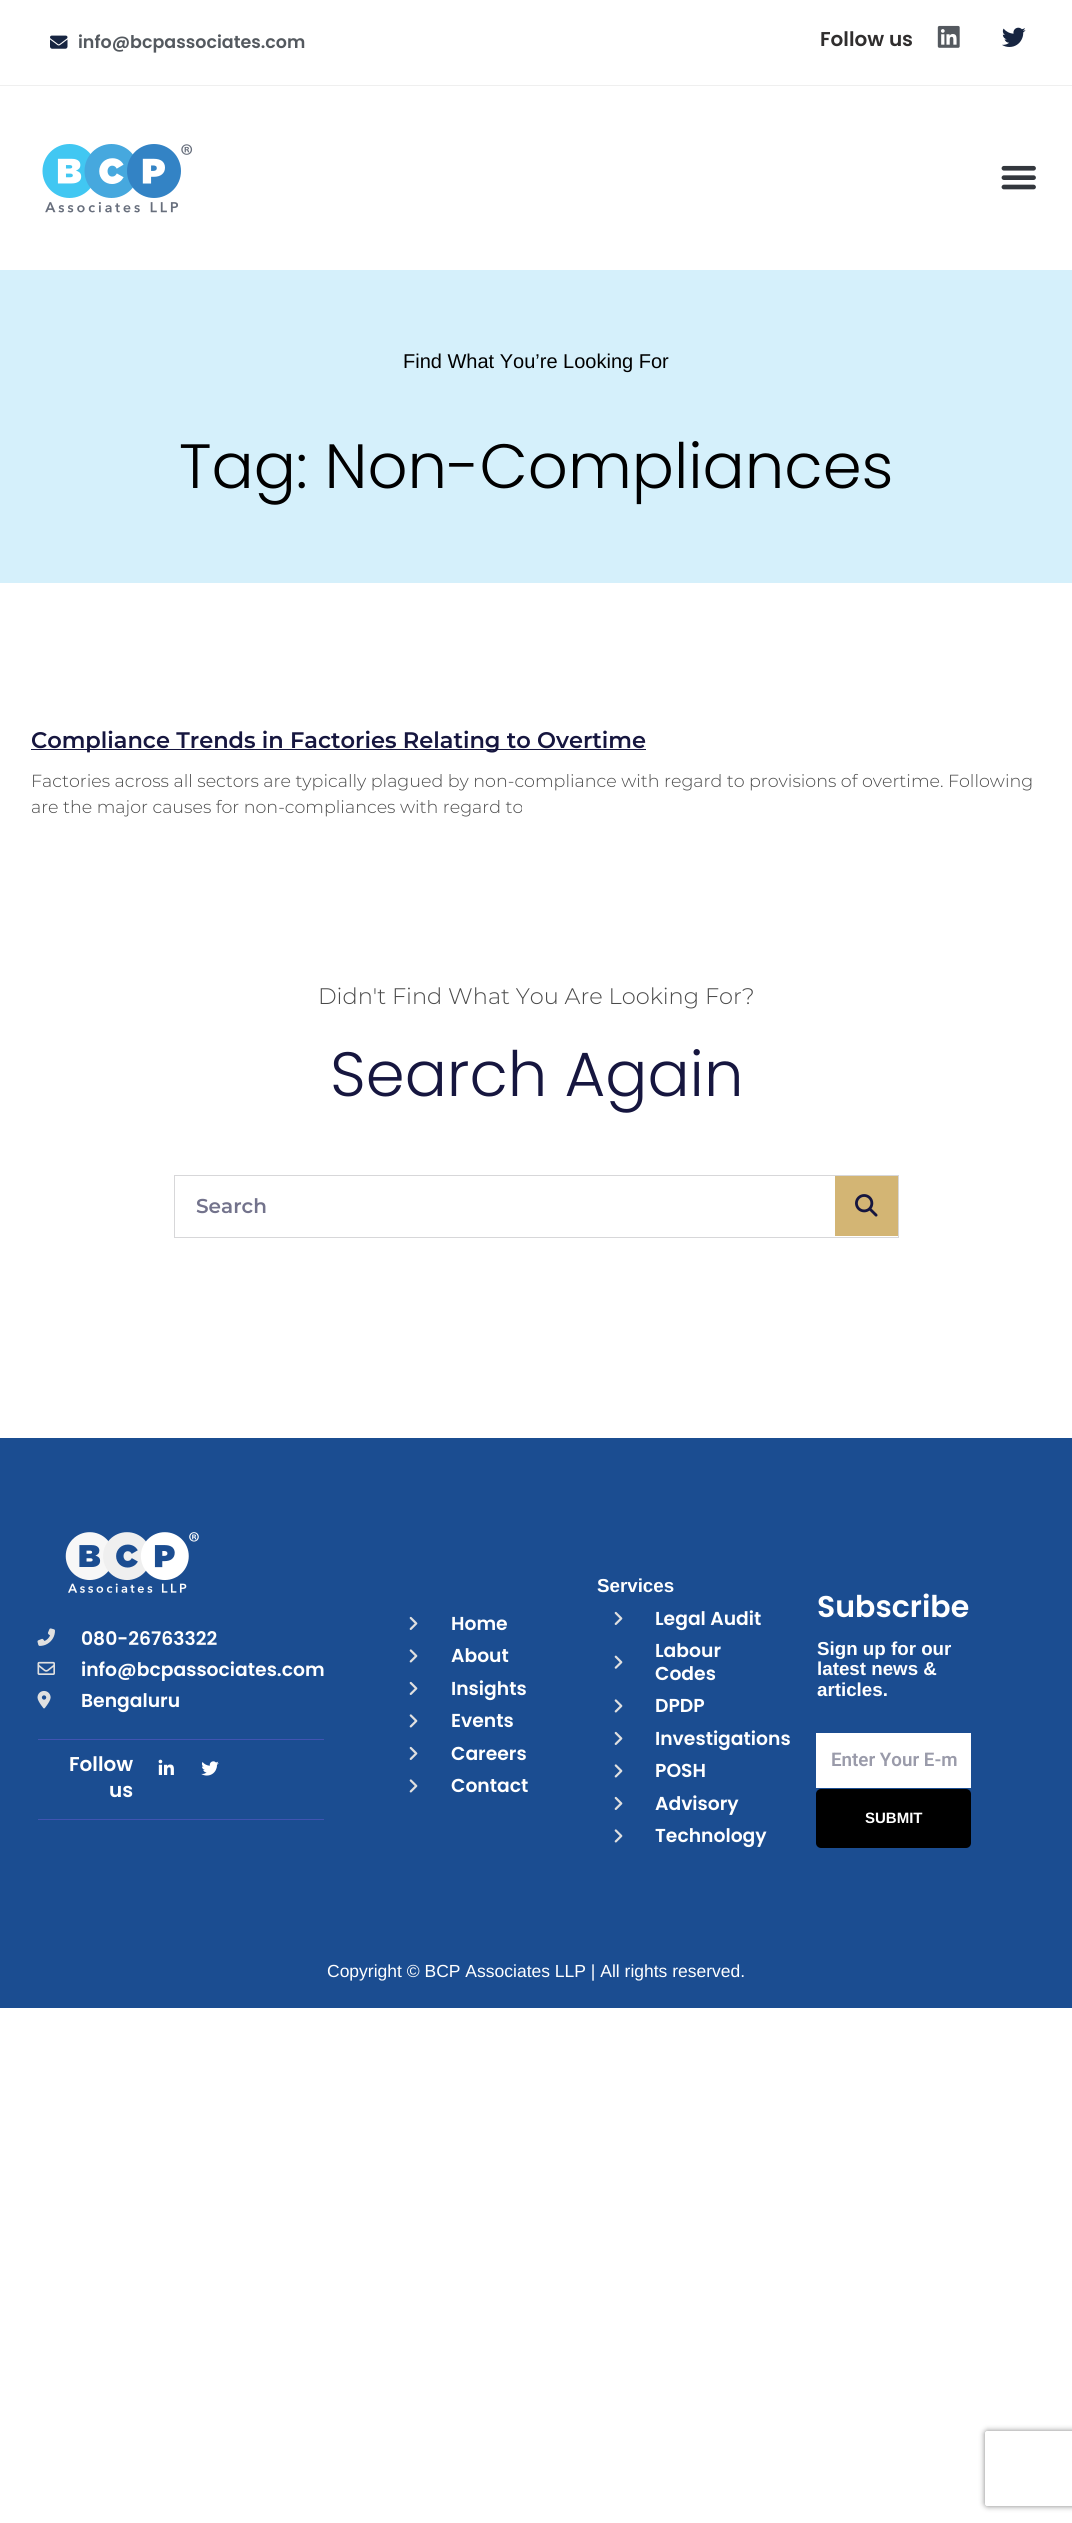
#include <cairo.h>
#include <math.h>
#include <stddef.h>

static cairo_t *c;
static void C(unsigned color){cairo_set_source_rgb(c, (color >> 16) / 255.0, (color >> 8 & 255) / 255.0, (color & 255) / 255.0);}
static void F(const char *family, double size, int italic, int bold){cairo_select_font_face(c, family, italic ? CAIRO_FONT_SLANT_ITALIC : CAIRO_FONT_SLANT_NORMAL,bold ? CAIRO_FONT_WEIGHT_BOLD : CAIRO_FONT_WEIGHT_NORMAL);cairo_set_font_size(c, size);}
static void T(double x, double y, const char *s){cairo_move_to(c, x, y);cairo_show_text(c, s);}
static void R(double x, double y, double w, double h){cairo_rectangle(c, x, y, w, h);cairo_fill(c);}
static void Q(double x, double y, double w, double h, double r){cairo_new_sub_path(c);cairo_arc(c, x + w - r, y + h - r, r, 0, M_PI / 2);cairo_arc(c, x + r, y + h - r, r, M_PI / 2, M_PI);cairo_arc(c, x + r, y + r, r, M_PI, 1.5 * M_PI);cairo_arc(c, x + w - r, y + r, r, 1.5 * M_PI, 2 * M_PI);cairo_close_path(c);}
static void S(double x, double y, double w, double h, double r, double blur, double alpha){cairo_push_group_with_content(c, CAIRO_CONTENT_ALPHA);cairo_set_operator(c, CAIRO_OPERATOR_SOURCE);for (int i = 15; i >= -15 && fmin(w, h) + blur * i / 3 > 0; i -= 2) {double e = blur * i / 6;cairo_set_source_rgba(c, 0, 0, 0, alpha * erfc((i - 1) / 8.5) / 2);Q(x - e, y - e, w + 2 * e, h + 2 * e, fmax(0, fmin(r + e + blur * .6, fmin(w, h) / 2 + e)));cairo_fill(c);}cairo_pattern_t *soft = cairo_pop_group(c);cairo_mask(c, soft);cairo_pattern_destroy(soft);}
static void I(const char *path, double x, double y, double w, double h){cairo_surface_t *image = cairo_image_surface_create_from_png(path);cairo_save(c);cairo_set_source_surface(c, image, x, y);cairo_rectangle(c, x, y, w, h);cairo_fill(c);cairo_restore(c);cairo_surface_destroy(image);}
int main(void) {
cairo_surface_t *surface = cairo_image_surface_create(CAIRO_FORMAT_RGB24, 1072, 2523);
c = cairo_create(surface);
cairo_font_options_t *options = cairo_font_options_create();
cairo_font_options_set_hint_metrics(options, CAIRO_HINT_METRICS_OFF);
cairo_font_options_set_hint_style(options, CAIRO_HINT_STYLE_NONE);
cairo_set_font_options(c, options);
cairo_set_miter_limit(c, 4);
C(0xffffff);
cairo_paint(c);
I("1.png",50,35,18,14);
F("Poppins SemiBold",17.5,0,0);
C(0x54595f);
T(78,48,"info@bcpassociates.com");
F("Poppins SemiBold",20,0,0);
C(0x302e2e);
T(820,46,"Follow us");
I("2.png",937,25,23,23);
I("3.png",1002,27,24,20);
C(0xefefef);
R(0,85,1072,1);
I("4.png",42,144,151,69);
I("5.png",1001,165,35,25);
C(0xd5f0fb);
R(0,270,1072,313);
F("Liberation Sans",20,0,0);
C(0x000000);
T(403,368,"Find What You’re Looking For");
F("Poppins Light",62.5,0,0);
T(179,488,"Tag: Non-Compliances");
C(0x16163f);
R(31,749,615,1);
F("Montserrat SemiBold",22.5,0,0);
T(31,748,"Compliance Trends in Factories Relating to Overtime");
F("Montserrat Light",17.5,0,0);
C(0x4a4a4a);
T(31,787,"Factories across all sectors are typically plagued by non-compliance with regard to provisions of overtime. Following");
T(31,813,"are the major causes for non-compliances with regard to");
F("Montserrat Light",22.5,0,0);
T(318,1004,"Didn't Find What You Are Looking For?");
F("Poppins Light",62.5,0,0);
C(0x16163f);
T(330,1096,"Search Again");
cairo_rectangle(c,174.5,1175.5,724,62);
C(0xd7d7d9);
cairo_set_line_width(c,1);
cairo_stroke(c);
F("Montserrat SemiBold",20,0,0);
C(0x73738c);
T(196,1213,"Search");
C(0xd3b574);
R(835,1176,63,60);
I("6.png",855,1194,23,23);
C(0x1b4d91);
R(0,1438,1072,570);
I("7.png",65,1532,134,61);
I("8.png",37,1628,18,18);
F("Poppins SemiBold",18.75,0,0);
C(0xffffff);
T(81,1645,"080-26763322");
I("9.png",37,1661,18,14);
T(81,1676,"info@bcpassociates.com");
I("10.png",37,1690,14,19);
T(81,1707,"Bengaluru");
C(0x4054b2);
R(38,1739,286,1);
R(38,1819,286,1);
F("Poppins SemiBold",20,0,0);
C(0xffffff);
T(69,1771,"Follow");
T(109,1797,"us");
I("11.png",158,1759,16,16);
I("12.png",201,1761,18,15);
I("13.png",409,1616,9,14);
F("Poppins SemiBold",18.75,0,0);
T(451,1630,"Home");
I("14.png",409,1649,9,14);
T(451,1662,"About");
I("13.png",409,1681,9,14);
T(451,1695,"Insights");
I("14.png",409,1714,9,14);
T(451,1727,"Events");
I("13.png",409,1746,9,14);
T(451,1760,"Careers");
I("14.png",409,1779,9,14);
T(451,1792,"Contact");
F("Liberation Sans",18.75,0,1);
T(597,1592,"Services");
I("13.png",614,1611,9,14);
F("Poppins SemiBold",18.75,0,0);
T(655,1625,"Legal Audit");
I("15.png",614,1655,9,14);
T(655,1657,"Labour");
T(655,1680,"Codes");
I("14.png",614,1699,9,14);
T(655,1712,"DPDP");
I("13.png",614,1731,9,14);
T(655,1745,"Investigations");
I("14.png",614,1764,9,14);
T(655,1777,"POSH");
I("13.png",614,1796,9,14);
T(655,1810,"Advisory");
I("14.png",614,1829,9,14);
T(655,1842,"Technology");
F("Poppins SemiBold",30,0,0);
T(817,1617,"Subscribe");
F("Liberation Sans",18.75,0,1);
T(817,1655,"Sign up for our");
T(817,1675,"latest news &");
T(817,1696,"articles.");
R(816,1733,155,55);
F("Roboto SemiBold",18.75,0,0);
C(0x9a9baa);
T(831,1766,"Enter Your E-m");
C(0x000000);
Q(816,1789,155,59,5);
cairo_fill(c);
F("Liberation Sans",15,0,1);
C(0xffffff);
T(865,1823,"SUBMIT");
cairo_save(c);
cairo_set_fill_rule(c,CAIRO_FILL_RULE_EVEN_ODD);
cairo_new_path(c);
cairo_move_to(c,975,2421);
cairo_line_to(c,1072,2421);
cairo_line_to(c,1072,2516);
cairo_line_to(c,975,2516);
cairo_close_path(c);
cairo_move_to(c,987.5,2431);
cairo_line_to(c,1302.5,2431);
cairo_curve_to(c,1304,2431,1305,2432,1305,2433.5);
cairo_line_to(c,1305,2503.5);
cairo_curve_to(c,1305,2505,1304,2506,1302.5,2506);
cairo_line_to(c,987.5,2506);
cairo_curve_to(c,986,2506,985,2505,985,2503.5);
cairo_line_to(c,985,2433.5);
cairo_curve_to(c,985,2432,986,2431,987.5,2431);
cairo_close_path(c);
cairo_clip(c);
C(0x808080);
S(985,2431,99,75,2.5,3,1);
cairo_restore(c);
F("Liberation Sans",17.5,0,0);
T(327,1977,"Copyright © BCP Associates LLP | All rights reserved.");
cairo_surface_write_to_png(surface, "o.png");
cairo_font_options_destroy(options);
cairo_destroy(c);
cairo_surface_destroy(surface);
return 0;
}
